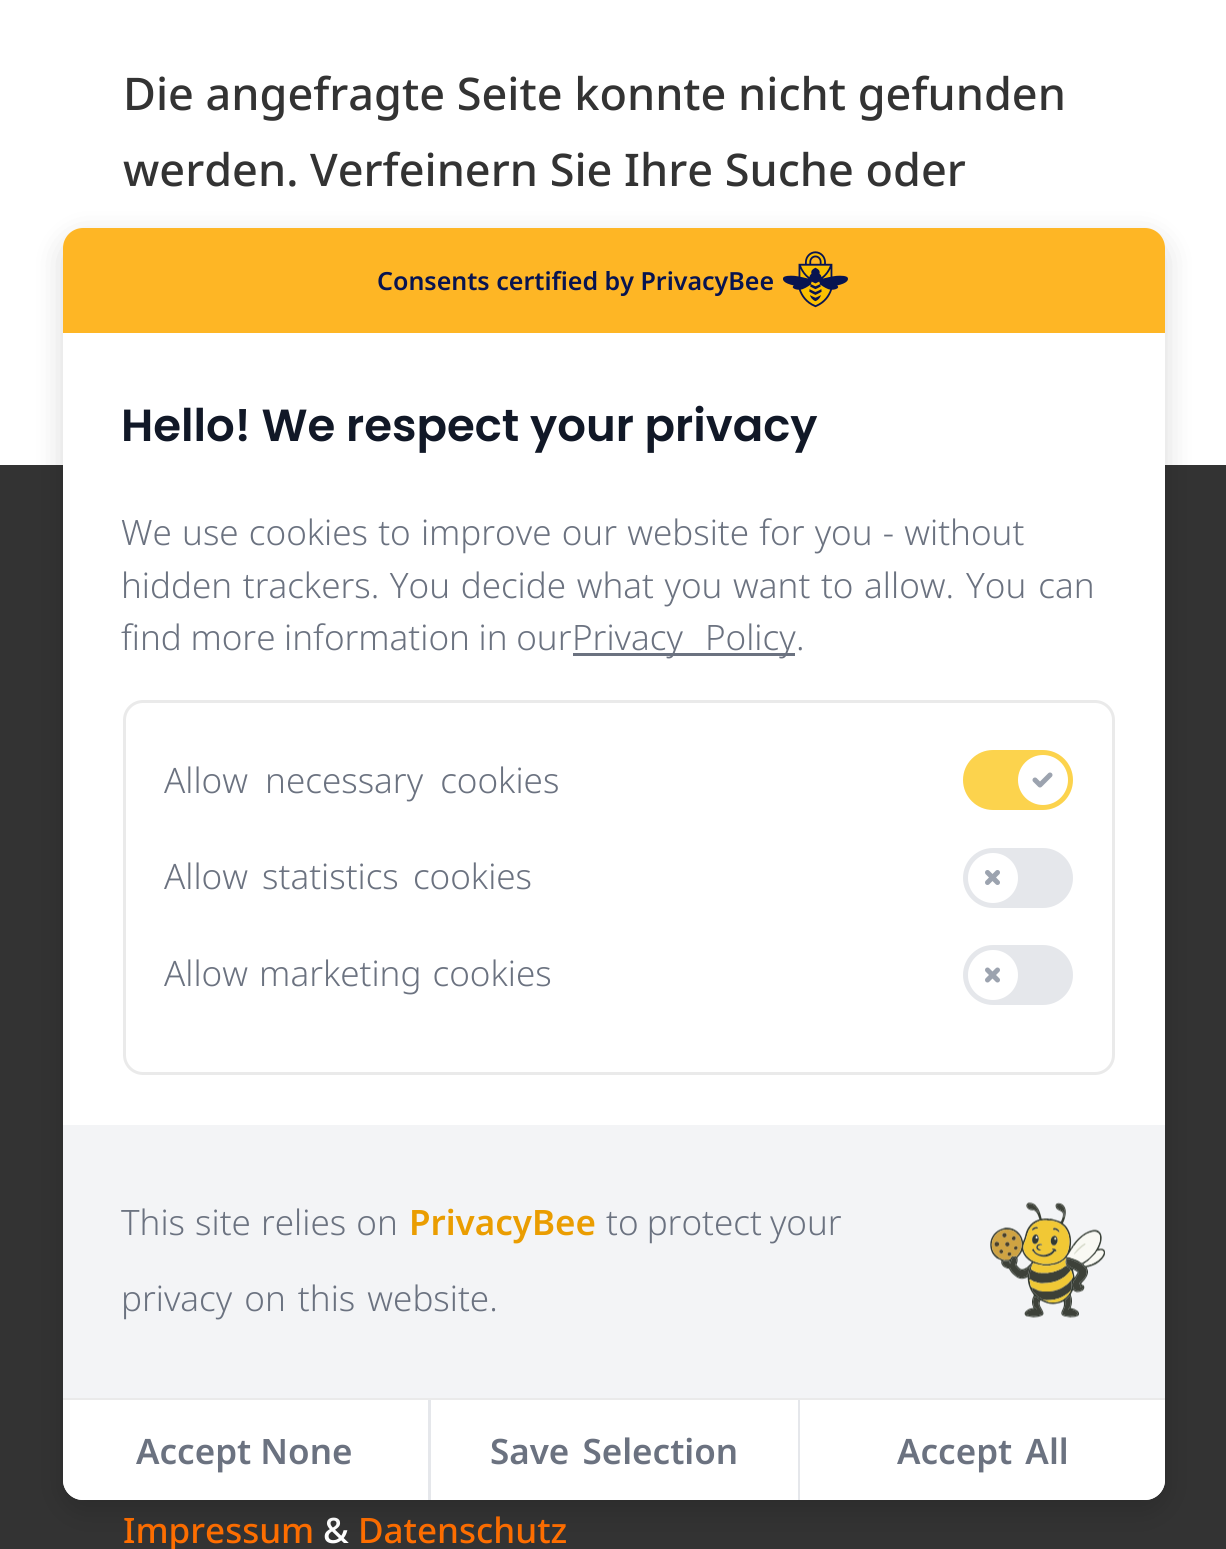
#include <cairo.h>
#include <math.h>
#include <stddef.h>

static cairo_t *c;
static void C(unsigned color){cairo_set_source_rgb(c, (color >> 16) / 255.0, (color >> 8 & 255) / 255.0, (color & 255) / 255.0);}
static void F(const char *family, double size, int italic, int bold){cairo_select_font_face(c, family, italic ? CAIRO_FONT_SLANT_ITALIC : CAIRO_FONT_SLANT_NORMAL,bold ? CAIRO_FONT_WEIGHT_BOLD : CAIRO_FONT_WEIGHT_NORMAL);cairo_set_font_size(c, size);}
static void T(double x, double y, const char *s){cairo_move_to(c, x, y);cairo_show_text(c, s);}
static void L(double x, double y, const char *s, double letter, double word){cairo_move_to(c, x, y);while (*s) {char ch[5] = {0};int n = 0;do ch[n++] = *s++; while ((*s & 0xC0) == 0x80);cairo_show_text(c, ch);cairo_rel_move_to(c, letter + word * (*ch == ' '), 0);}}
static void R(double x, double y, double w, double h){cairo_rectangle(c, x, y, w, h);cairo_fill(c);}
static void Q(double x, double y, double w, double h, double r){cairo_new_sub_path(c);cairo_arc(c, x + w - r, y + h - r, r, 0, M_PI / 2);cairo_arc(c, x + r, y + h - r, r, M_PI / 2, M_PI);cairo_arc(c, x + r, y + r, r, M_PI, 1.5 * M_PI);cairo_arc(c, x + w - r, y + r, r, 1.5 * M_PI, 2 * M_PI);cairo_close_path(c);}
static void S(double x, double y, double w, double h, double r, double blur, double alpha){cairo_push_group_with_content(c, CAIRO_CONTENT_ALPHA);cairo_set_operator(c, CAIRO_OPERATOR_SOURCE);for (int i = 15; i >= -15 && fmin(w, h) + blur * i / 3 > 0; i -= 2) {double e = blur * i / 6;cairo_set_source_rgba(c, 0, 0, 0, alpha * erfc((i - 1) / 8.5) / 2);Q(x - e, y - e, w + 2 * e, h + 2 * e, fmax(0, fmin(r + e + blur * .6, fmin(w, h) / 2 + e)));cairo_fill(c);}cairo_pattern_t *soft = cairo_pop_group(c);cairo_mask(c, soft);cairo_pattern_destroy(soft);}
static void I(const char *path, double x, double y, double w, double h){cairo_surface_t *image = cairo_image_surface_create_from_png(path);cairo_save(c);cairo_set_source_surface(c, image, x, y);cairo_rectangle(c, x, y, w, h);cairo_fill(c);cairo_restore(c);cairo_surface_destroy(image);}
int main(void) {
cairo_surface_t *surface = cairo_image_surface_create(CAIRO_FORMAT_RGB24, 1226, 1549);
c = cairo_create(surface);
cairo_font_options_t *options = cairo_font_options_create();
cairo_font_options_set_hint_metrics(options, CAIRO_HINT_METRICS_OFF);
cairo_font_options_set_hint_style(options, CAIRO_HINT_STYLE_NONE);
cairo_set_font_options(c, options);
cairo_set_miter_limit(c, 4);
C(0xffffff);
cairo_paint(c);
F("Noto Sans Medium",45,0,0);
C(0x333333);
T(123,110,"Die angefragte Seite konnte nicht gefunden");
T(123,186,"werden. Verfeinern Sie Ihre Suche oder");
R(0,465,1226,1084);
F("Noto Sans Medium",35,0,0);
C(0xff6e00);
T(123,1543,"Impressum");
C(0xffffff);
T(323,1543,"&");
C(0xff6e00);
T(358,1543,"Datenschutz");
C(0x000000);
S(63,238,1102,1272,20,15,.15);
C(0xffffff);
Q(63,228,1102,1272,20);
cairo_fill(c);
C(0xfeb625);
cairo_new_path(c);
cairo_move_to(c,83,228);
cairo_line_to(c,1145,228);
cairo_curve_to(c,1156,228,1165,237,1165,248);
cairo_line_to(c,1165,333);
cairo_line_to(c,63,333);
cairo_line_to(c,63,248);
cairo_curve_to(c,63,237,72,228,83,228);
cairo_close_path(c);
cairo_fill(c);
F("Noto Sans SemiBold",25,0,0);
C(0x081450);
T(377,290,"Consents certified by PrivacyBee");
I("1.png",783,251,65,57);
F("Poppins SemiBold",45,0,0);
C(0x111827);
T(121,441,"Hello! We respect your privacy");
F("Noto Sans Light",35,0,0);
C(0x6b7280);
L(121,545,"We use cookies to improve our website for you - without",0,1.1);
L(121,598,"hidden trackers. You decide what you want to allow.",0,1.5);
L(966,598,"You can",0,3);
L(121,650,"find more information in our",0,-.5);
R(573,653,222,3);
L(572,650,"Privacy Policy",0,13);
T(796,650,".");
Q(124.5,701.5,989,372,18.5);
C(0xeaeaea);
cairo_set_line_width(c,3);
cairo_stroke(c);
C(0x6b7280);
L(164,793,"Allow necessary cookies",0,8);
C(0xfcd34d);
Q(963,750,110,60,30);
cairo_fill(c);
C(0xffffff);
cairo_arc(c,1043,780,25,0,2 * M_PI);
cairo_fill(c);
cairo_new_path(c);
cairo_move_to(c,1050,775);
cairo_line_to(c,1040,785);
cairo_line_to(c,1035,780);
C(0x9ca3af);
cairo_set_line_width(c,5);
cairo_set_line_cap(c,CAIRO_LINE_CAP_ROUND);
cairo_set_line_join(c,CAIRO_LINE_JOIN_ROUND);
cairo_stroke(c);
C(0x6b7280);
L(164,889,"Allow statistics cookies",0,5);
C(0xe5e7eb);
Q(963,848,110,60,30);
cairo_fill(c);
C(0xffffff);
cairo_arc(c,993,878,25,0,2 * M_PI);
cairo_fill(c);
cairo_new_path(c);
cairo_move_to(c,992.5,877.5);
cairo_line_to(c,997.5,882.5);
cairo_move_to(c,987.5,882.5);
cairo_line_to(c,992.5,877.5);
cairo_close_path(c);
cairo_move_to(c,992.5,877.5);
cairo_line_to(c,997.5,872.5);
cairo_close_path(c);
cairo_move_to(c,992.5,877.5);
cairo_line_to(c,987.5,872.5);
cairo_close_path(c);
C(0x9ca3af);
cairo_stroke(c);
C(0x6b7280);
L(164,986,"Allow marketing cookies",0,2);
C(0xe5e7eb);
Q(963,945,110,60,30);
cairo_fill(c);
C(0xffffff);
cairo_arc(c,993,975,25,0,2 * M_PI);
cairo_fill(c);
cairo_new_path(c);
cairo_move_to(c,992.5,975);
cairo_line_to(c,997.5,980);
cairo_move_to(c,987.5,980);
cairo_line_to(c,992.5,975);
cairo_close_path(c);
cairo_move_to(c,992.5,975);
cairo_line_to(c,997.5,970);
cairo_close_path(c);
cairo_move_to(c,992.5,975);
cairo_line_to(c,987.5,970);
cairo_close_path(c);
C(0x9ca3af);
cairo_stroke(c);
C(0xf3f4f6);
R(63,1125,1102,273);
C(0x6b7280);
L(121,1235,"This site relies on",0,1);
F("Noto Sans SemiBold",35,0,0);
C(0xea9d01);
T(409,1235,"PrivacyBee");
F("Noto Sans Light",35,0,0);
C(0x6b7280);
L(606,1235,"to protect your",0,-1);
L(121,1311,"privacy on this website.",0,3);
I("2.png",990,1202,115,116);
C(0xeaeaea);
R(63,1398,1102,2);
C(0xffffff);
cairo_new_path(c);
cairo_move_to(c,63,1400);
cairo_line_to(c,428,1400);
cairo_line_to(c,428,1500);
cairo_line_to(c,83,1500);
cairo_curve_to(c,72,1500,63,1491,63,1480);
cairo_close_path(c);
cairo_fill(c);
F("Noto Sans SemiBold",35,0,0);
C(0x6b7280);
T(136,1464,"Accept None");
C(0xe5e7eb);
R(798,1400,2,100);
R(428,1400,3,100);
C(0x6b7280);
L(490,1464,"Save Selection",0,4);
C(0xffffff);
cairo_new_path(c);
cairo_move_to(c,800,1400);
cairo_line_to(c,1165,1400);
cairo_line_to(c,1165,1480);
cairo_curve_to(c,1165,1491,1156,1500,1145,1500);
cairo_line_to(c,800,1500);
cairo_close_path(c);
cairo_fill(c);
C(0x6b7280);
L(897,1464,"Accept All",0,4);
cairo_surface_write_to_png(surface, "o.png");
cairo_font_options_destroy(options);
cairo_destroy(c);
cairo_surface_destroy(surface);
return 0;
}
